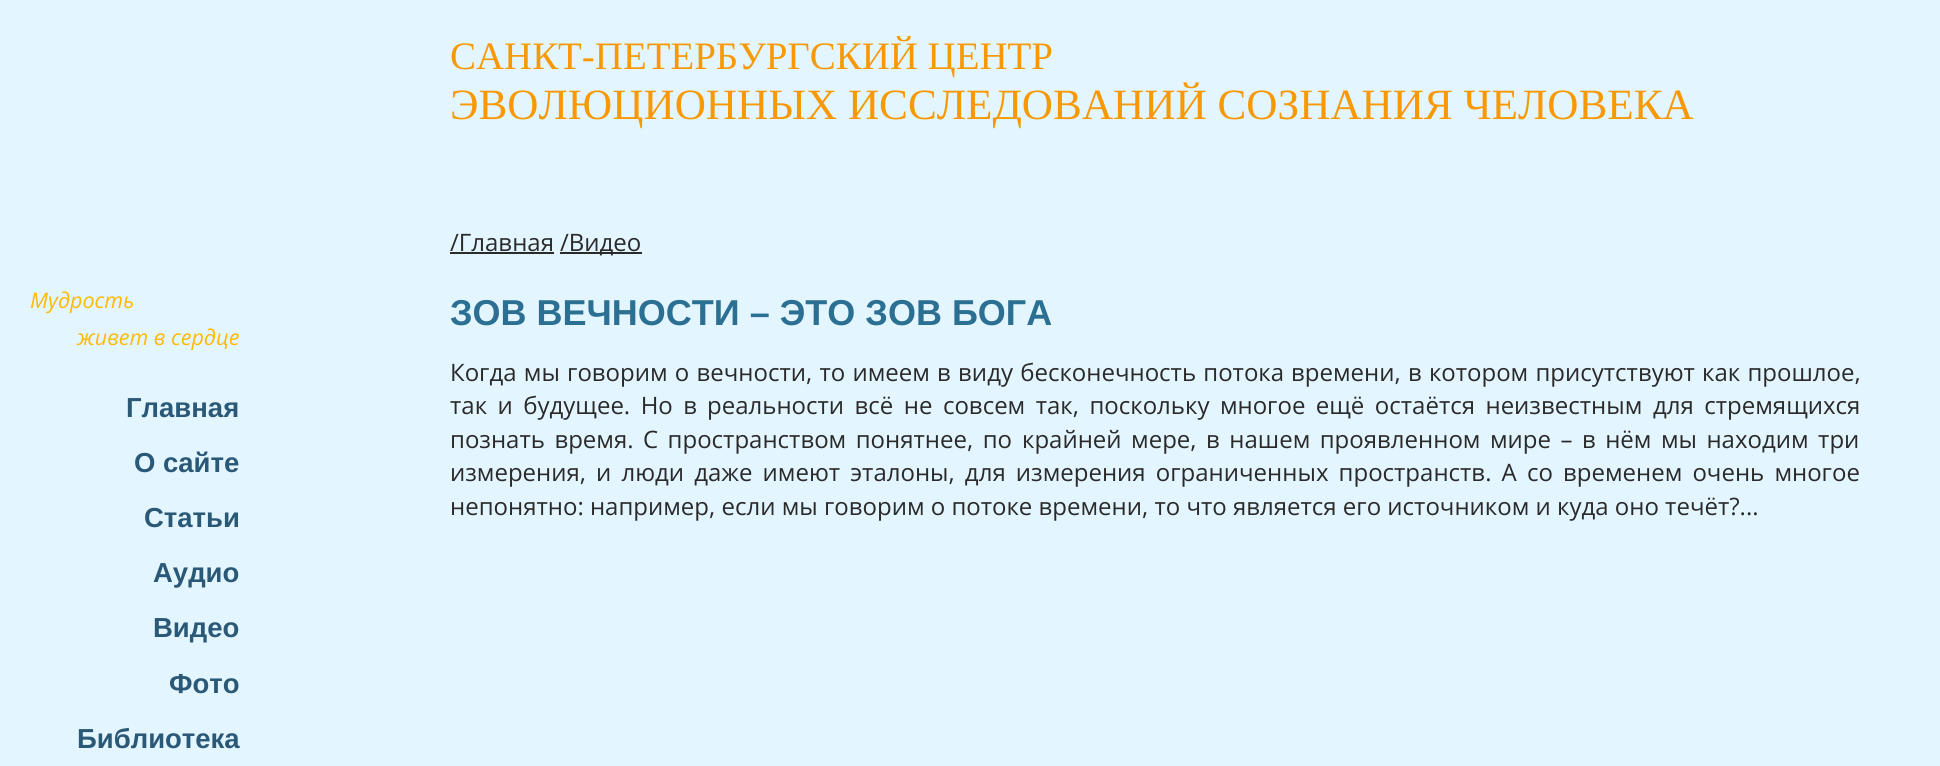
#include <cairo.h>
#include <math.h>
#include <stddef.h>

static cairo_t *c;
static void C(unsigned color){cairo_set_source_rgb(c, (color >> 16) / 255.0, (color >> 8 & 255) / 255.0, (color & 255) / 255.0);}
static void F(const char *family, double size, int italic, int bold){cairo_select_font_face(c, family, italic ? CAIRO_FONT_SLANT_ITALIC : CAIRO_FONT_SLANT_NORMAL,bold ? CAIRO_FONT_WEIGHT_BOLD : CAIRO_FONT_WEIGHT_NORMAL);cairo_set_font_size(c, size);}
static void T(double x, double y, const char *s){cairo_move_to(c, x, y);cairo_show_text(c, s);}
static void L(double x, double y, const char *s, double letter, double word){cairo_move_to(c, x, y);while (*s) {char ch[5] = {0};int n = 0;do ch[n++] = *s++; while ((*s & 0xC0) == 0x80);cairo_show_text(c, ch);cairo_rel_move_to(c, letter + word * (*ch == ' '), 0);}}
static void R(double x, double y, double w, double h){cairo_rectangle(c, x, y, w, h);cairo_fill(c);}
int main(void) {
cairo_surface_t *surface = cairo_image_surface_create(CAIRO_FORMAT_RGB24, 1940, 766);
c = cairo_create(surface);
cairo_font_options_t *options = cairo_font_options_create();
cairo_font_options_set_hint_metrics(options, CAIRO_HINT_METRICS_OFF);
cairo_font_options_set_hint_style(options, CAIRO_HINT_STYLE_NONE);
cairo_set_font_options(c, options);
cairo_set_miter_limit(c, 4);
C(0xe3f5ff);
cairo_paint(c);
F("Liberation Serif",38.9,0,0);
C(0xf89903);
T(450,69,"САНКТ-ПЕТЕРБУРГСКИЙ ЦЕНТР");
F("Liberation Serif",43.2,0,0);
T(450,119,"ЭВОЛЮЦИОННЫХ ИССЛЕДОВАНИЙ СОЗНАНИЯ ЧЕЛОВЕКА");
F("Open Sans",21.5,1,0);
C(0xfeba04);
T(30,308,"Мудрость");
T(77,345,"живет в сердце");
F("Liberation Sans",27.5,0,1);
C(0x2a5877);
T(126,417,"Главная");
T(134,472,"О сайте");
T(144,527,"Статьи");
T(153,582,"Аудио");
T(153,637,"Видео");
T(169,693,"Фото");
T(77,748,"Библиотека");
F("Open Sans",24,0,0);
C(0x2a2a2a);
T(450,251,"/Главная");
R(450,252,104,2);
R(560,252,82,2);
T(560,251,"/Видео");
F("Liberation Sans",36,0,1);
C(0x2b7093);
T(450,325,"ЗОВ ВЕЧНОСТИ – ЭТО ЗОВ БОГА");
F("Open Sans",24,0,0);
C(0x2a2a2a);
L(450,381,"Когда мы говорим о вечности, то имеем в виду бесконечность потока",0,1);
L(1291,381,"времени, в котором присутствуют как прошлое,",0,1);
L(450,414,"так и будущее. Но в",0,4.25);
L(707,414,"реальности всё не совсем так, поскольку многое ещё остаётся неизвестным",0,4.25);
L(1653,414,"для стремящихся",0,4.25);
L(450,448,"познать время.",0,3.25);
L(643,448,"С пространством понятнее, по",0,3.25);
L(1022,448,"крайней мере, в нашем проявленном мире – в нём мы находим три",0,3.25);
T(450,481,"измерения,");
L(596,481,"и люди даже имеют эталоны, для измерения ограниченных пространств. А со",0,3.9);
L(1563,481,"временем очень многое",0,3.9);
T(450,515,"непонятно: например, если мы говорим о потоке времени, то что является его источником и куда оно течёт?...");
cairo_surface_write_to_png(surface, "o.png");
cairo_font_options_destroy(options);
cairo_destroy(c);
cairo_surface_destroy(surface);
return 0;
}
